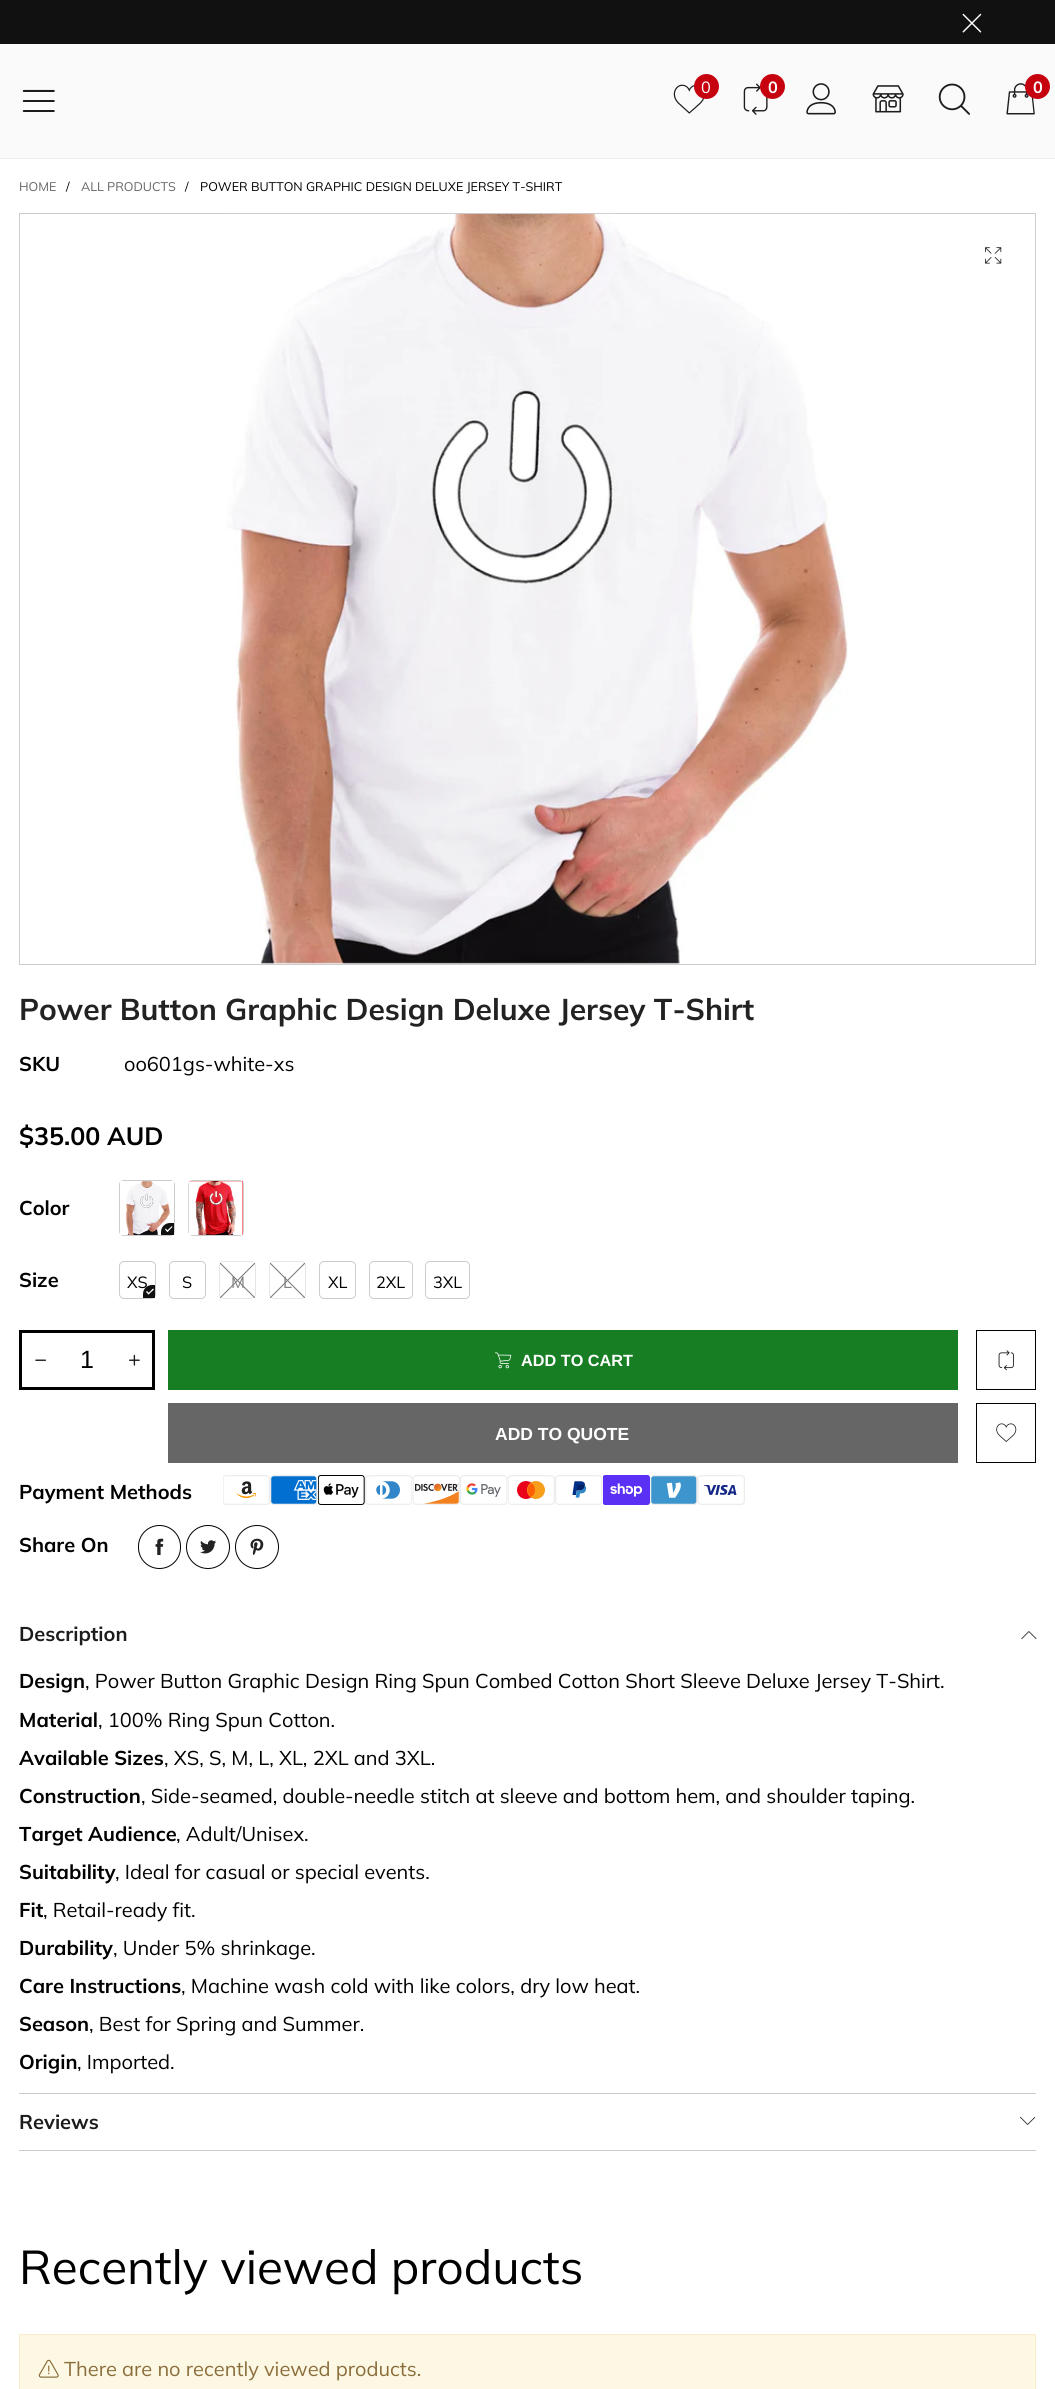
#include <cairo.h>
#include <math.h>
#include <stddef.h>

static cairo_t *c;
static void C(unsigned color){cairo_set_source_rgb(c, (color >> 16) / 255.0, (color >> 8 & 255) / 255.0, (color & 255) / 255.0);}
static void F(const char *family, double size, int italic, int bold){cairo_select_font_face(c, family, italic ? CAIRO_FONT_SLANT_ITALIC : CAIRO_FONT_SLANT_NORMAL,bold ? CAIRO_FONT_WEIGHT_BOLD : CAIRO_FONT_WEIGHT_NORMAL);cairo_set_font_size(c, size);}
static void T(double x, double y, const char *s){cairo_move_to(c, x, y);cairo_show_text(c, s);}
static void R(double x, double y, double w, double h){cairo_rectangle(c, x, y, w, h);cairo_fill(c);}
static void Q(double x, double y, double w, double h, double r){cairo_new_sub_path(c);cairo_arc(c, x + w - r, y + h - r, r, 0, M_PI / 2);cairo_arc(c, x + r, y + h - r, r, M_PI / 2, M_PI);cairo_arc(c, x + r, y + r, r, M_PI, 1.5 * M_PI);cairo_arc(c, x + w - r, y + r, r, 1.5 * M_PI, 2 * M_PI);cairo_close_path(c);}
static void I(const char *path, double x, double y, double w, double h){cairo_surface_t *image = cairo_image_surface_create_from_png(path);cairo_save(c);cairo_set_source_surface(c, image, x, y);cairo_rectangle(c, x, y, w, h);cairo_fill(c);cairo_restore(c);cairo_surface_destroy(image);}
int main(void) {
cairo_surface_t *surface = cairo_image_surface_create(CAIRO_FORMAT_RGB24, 1055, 2389);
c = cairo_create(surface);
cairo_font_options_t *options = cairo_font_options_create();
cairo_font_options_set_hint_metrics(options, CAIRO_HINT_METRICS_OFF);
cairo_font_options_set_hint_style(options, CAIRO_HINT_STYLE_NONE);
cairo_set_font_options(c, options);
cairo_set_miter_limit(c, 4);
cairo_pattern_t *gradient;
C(0xffffff);
cairo_paint(c);
C(0x111111);
R(0,0,1055,44);
I("1.png",962,13,20,20);
C(0xfafafa);
R(0,44,1055,114);
C(0xeeeeee);
R(0,158,1055,1);
I("2.png",673,84,32,30);
C(0xc7020f);
cairo_arc(c,706.5,86.5,12.5,0,2 * M_PI);
cairo_fill(c);
F("Muli",16.25,0,0);
C(0xffffff);
T(701,93,"0");
I("3.png",743,83,25,32);
C(0xc7020f);
cairo_arc(c,772.5,86.5,12.5,0,2 * M_PI);
cairo_fill(c);
F("Muli",16.25,0,1);
C(0xffffff);
T(768,93,"0");
I("4.png",806,83,30,32);
I("5.png",872,85,32,28);
I("6.png",938,83,32,32);
I("7.png",1006,83,29,32);
C(0xc7020f);
cairo_arc(c,1037.5,86.5,12.5,0,2 * M_PI);
cairo_fill(c);
C(0xffffff);
T(1033,93,"0");
I("8.png",22,89,33,23);
F("Muli",12.5,0,0);
C(0x666666);
T(19,191,"HOME");
C(0x000000);
T(66,191,"/");
C(0x666666);
T(81,191,"ALL PRODUCTS");
C(0x000000);
T(185,191,"/");
T(200,191,"POWER BUTTON GRAPHIC DESIGN DELUXE JERSEY T-SHIRT");
cairo_rectangle(c,19.5,213.5,1016,751);
C(0xcccccc);
cairo_set_line_width(c,1);
cairo_stroke(c);
I("9.png",227,213,621,751);
I("10.png",985,247,17,17);
F("Muli",30,0,1);
C(0x222222);
T(19,1020,"Power Button Graphic Design Deluxe Jersey T-Shirt");
F("Muli",20,0,1);
C(0x000000);
T(19,1071,"SKU");
F("Muli",20,0,0);
T(124,1071,"oo601gs-white-xs");
F("Muli",25,0,1);
T(19,1145,"$35.00 AUD");
F("Muli",20,0,1);
T(19,1215,"Color");
Q(119.5,1180.5,55,55,4.5);
C(0xcccccc);
cairo_stroke(c);
C(0xffffff);
R(120,1181,54,54);
I("11.png",126,1181,46,54);
C(0x111111);
cairo_new_path(c);
cairo_move_to(c,170,1223);
cairo_line_to(c,174,1223);
cairo_line_to(c,174,1235);
cairo_line_to(c,161,1235);
cairo_line_to(c,161,1232);
cairo_curve_to(c,161,1227,165,1223,170,1223);
cairo_close_path(c);
cairo_fill(c);
C(0xffffff);
cairo_new_path(c);
cairo_move_to(c,166.5,1231);
cairo_line_to(c,172,1226);
cairo_line_to(c,172.5,1227);
cairo_line_to(c,167.5,1232);
cairo_close_path(c);
cairo_fill(c);
cairo_new_path(c);
cairo_move_to(c,165,1229.5);
cairo_line_to(c,165.5,1228.5);
cairo_line_to(c,168.5,1231);
cairo_line_to(c,167.5,1232);
cairo_close_path(c);
cairo_fill(c);
Q(188.5,1180.5,55,55,4.5);
C(0xcccccc);
cairo_stroke(c);
C(0xff0000);
R(189,1181,54,54);
I("12.png",188,1181,55,54);
C(0x000000);
T(19,1287,"Size");
Q(119.5,1261.5,36,37,4.5);
C(0xcccccc);
cairo_stroke(c);
F("Muli",16.25,0,0);
C(0x000000);
T(127,1288,"XS");
C(0x111111);
cairo_new_path(c);
cairo_move_to(c,152,1285);
cairo_line_to(c,155,1285);
cairo_line_to(c,155,1298);
cairo_line_to(c,143,1298);
cairo_line_to(c,143,1294);
cairo_curve_to(c,143,1289,147,1285,152,1285);
cairo_close_path(c);
cairo_fill(c);
C(0xffffff);
cairo_new_path(c);
cairo_move_to(c,148,1293.5);
cairo_line_to(c,153,1288.5);
cairo_line_to(c,154,1289.5);
cairo_line_to(c,148.5,1294.5);
cairo_close_path(c);
cairo_fill(c);
cairo_new_path(c);
cairo_move_to(c,146,1292);
cairo_line_to(c,147,1291);
cairo_line_to(c,149.5,1293.5);
cairo_line_to(c,148.5,1294.5);
cairo_close_path(c);
cairo_fill(c);
Q(169.5,1261.5,36,37,4.5);
C(0xcccccc);
cairo_stroke(c);
C(0x000000);
T(182,1288,"S");
Q(219.5,1261.5,36,37,4.5);
C(0xe6e6e6);
cairo_stroke(c);
gradient = cairo_pattern_create_linear(220,1298,255,1263);
cairo_pattern_add_color_stop_rgba(gradient,0,0.502,0.502,0.502,0);
cairo_pattern_add_color_stop_rgba(gradient,.48,0.502,0.502,0.502,0);
cairo_pattern_add_color_stop_rgba(gradient,.5,0.502,0.502,0.502,1);
cairo_pattern_add_color_stop_rgba(gradient,.52,0.502,0.502,0.502,0);
cairo_pattern_add_color_stop_rgba(gradient,1,0.502,0.502,0.502,0);
cairo_set_source(c,gradient);
cairo_pattern_destroy(gradient);
R(220,1263,35,35);
gradient = cairo_pattern_create_linear(255,1298,220,1263);
cairo_pattern_add_color_stop_rgba(gradient,0,0.502,0.502,0.502,0);
cairo_pattern_add_color_stop_rgba(gradient,.48,0.502,0.502,0.502,0);
cairo_pattern_add_color_stop_rgba(gradient,.5,0.502,0.502,0.502,1);
cairo_pattern_add_color_stop_rgba(gradient,.52,0.502,0.502,0.502,0);
cairo_pattern_add_color_stop_rgba(gradient,1,0.502,0.502,0.502,0);
cairo_set_source(c,gradient);
cairo_pattern_destroy(gradient);
R(220,1263,35,35);
C(0x808080);
T(231,1288,"M");
Q(269.5,1261.5,36,37,4.5);
C(0xe6e6e6);
cairo_stroke(c);
gradient = cairo_pattern_create_linear(270,1298,305,1263);
cairo_pattern_add_color_stop_rgba(gradient,0,0.502,0.502,0.502,0);
cairo_pattern_add_color_stop_rgba(gradient,.48,0.502,0.502,0.502,0);
cairo_pattern_add_color_stop_rgba(gradient,.5,0.502,0.502,0.502,1);
cairo_pattern_add_color_stop_rgba(gradient,.52,0.502,0.502,0.502,0);
cairo_pattern_add_color_stop_rgba(gradient,1,0.502,0.502,0.502,0);
cairo_set_source(c,gradient);
cairo_pattern_destroy(gradient);
R(270,1263,35,35);
gradient = cairo_pattern_create_linear(305,1298,270,1263);
cairo_pattern_add_color_stop_rgba(gradient,0,0.502,0.502,0.502,0);
cairo_pattern_add_color_stop_rgba(gradient,.48,0.502,0.502,0.502,0);
cairo_pattern_add_color_stop_rgba(gradient,.5,0.502,0.502,0.502,1);
cairo_pattern_add_color_stop_rgba(gradient,.52,0.502,0.502,0.502,0);
cairo_pattern_add_color_stop_rgba(gradient,1,0.502,0.502,0.502,0);
cairo_set_source(c,gradient);
cairo_pattern_destroy(gradient);
R(270,1263,35,35);
C(0x808080);
T(283,1288,"L");
Q(319.5,1261.5,36,37,4.5);
C(0xcccccc);
cairo_stroke(c);
C(0x000000);
T(328,1288,"XL");
Q(369.5,1261.5,43,37,4.5);
C(0xcccccc);
cairo_stroke(c);
C(0x000000);
T(376,1288,"2XL");
Q(425.5,1261.5,44,37,4.5);
C(0xcccccc);
cairo_stroke(c);
C(0x000000);
T(433,1288,"3XL");
cairo_rectangle(c,20.5,1331.5,133,57);
cairo_set_line_width(c,3);
cairo_stroke(c);
I("13.png",35,1359,11,2);
F("Liberation Sans",25,0,0);
T(80,1368,"1");
I("14.png",129,1354,11,12);
C(0x177e24);
R(168,1330,790,60);
I("15.png",495,1352,17,17);
F("Liberation Sans",16.25,0,1);
C(0xffffff);
T(521,1366,"ADD TO CART");
cairo_rectangle(c,976.5,1330.5,59,59);
C(0x000000);
cairo_set_line_width(c,1);
cairo_stroke(c);
I("16.png",998,1350,16,21);
C(0x666666);
R(168,1403,790,60);
F("Liberation Sans",17.5,0,1);
C(0xffffff);
T(495,1440,"ADD TO QUOTE");
cairo_rectangle(c,976.5,1403.5,59,59);
C(0x000000);
cairo_stroke(c);
I("17.png",996,1423,21,19);
F("Muli",20,0,1);
T(19,1499,"Payment Methods");
I("18.png",223,1475,47,30);
I("19.png",270,1475,48,30);
I("20.png",318,1475,47,30);
I("21.png",365,1475,48,30);
I("22.png",413,1475,47,30);
I("23.png",460,1475,48,30);
I("24.png",508,1475,47,30);
I("25.png",555,1475,48,30);
I("26.png",603,1475,47,30);
I("27.png",650,1475,48,30);
I("28.png",698,1475,47,30);
T(19,1552,"Share On");
Q(138.5,1525.5,42,43,21);
cairo_stroke(c);
I("29.png",155,1538,9,17);
cairo_arc(c,208,1547,21.5,0,2 * M_PI);
cairo_stroke(c);
I("30.png",200,1540,17,14);
cairo_arc(c,257,1547,21.5,0,2 * M_PI);
cairo_stroke(c);
I("31.png",250,1538,14,17);
C(0xcccccc);
R(19,2093,1017,1);
C(0x1c1c1c);
T(19,1641,"Description");
I("32.png",1021,1631,16,9);
C(0x000000);
T(19,1688,"Design");
F("Muli",20,0,0);
T(85,1688,", Power Button Graphic Design Ring Spun Combed Cotton Short Sleeve Deluxe Jersey T-Shirt.");
F("Muli",20,0,1);
T(19,1727,"Material");
F("Muli",20,0,0);
T(98,1727,", 100% Ring Spun Cotton.");
F("Muli",20,0,1);
T(19,1765,"Available Sizes");
F("Muli",20,0,0);
T(164,1765,", XS, S, M, L, XL, 2XL and 3XL.");
F("Muli",20,0,1);
T(19,1803,"Construction");
F("Muli",20,0,0);
T(141,1803,", Side-seamed, double-needle stitch at sleeve and bottom hem, and shoulder taping.");
F("Muli",20,0,1);
T(19,1841,"Target Audience");
F("Muli",20,0,0);
T(176,1841,", Adult/Unisex.");
F("Muli",20,0,1);
T(19,1879,"Suitability");
F("Muli",20,0,0);
T(115,1879,", Ideal for casual or special events.");
F("Muli",20,0,1);
T(19,1917,"Fit");
F("Muli",20,0,0);
T(43,1917,", Retail-ready fit.");
F("Muli",20,0,1);
T(19,1955,"Durability");
F("Muli",20,0,0);
T(113,1955,", Under 5% shrinkage.");
F("Muli",20,0,1);
T(19,1993,"Care Instructions");
F("Muli",20,0,0);
T(181,1993,", Machine wash cold with like colors, dry low heat.");
F("Muli",20,0,1);
T(19,2031,"Season");
F("Muli",20,0,0);
T(89,2031,", Best for Spring and Summer.");
F("Muli",20,0,1);
T(19,2069,"Origin");
F("Muli",20,0,0);
T(77,2069,", Imported.");
C(0xcccccc);
R(19,2150,1017,1);
F("Muli",20,0,1);
C(0x1c1c1c);
T(19,2129,"Reviews");
I("33.png",1020,2116,16,9);
F("Muli",47.5,0,0);
C(0x000000);
T(19,2284,"Recently viewed products");
C(0xfcf8e3);
cairo_rectangle(c,19.5,2334.5,1016,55);
cairo_fill_preserve(c);
C(0xfaebcc);
cairo_stroke(c);
I("34.png",38,2359,21,19);
F("Muli",20,0,0);
C(0x8a6d3b);
T(64,2376,"There are no recently viewed products.");
cairo_surface_write_to_png(surface, "o.png");
cairo_font_options_destroy(options);
cairo_destroy(c);
cairo_surface_destroy(surface);
return 0;
}
